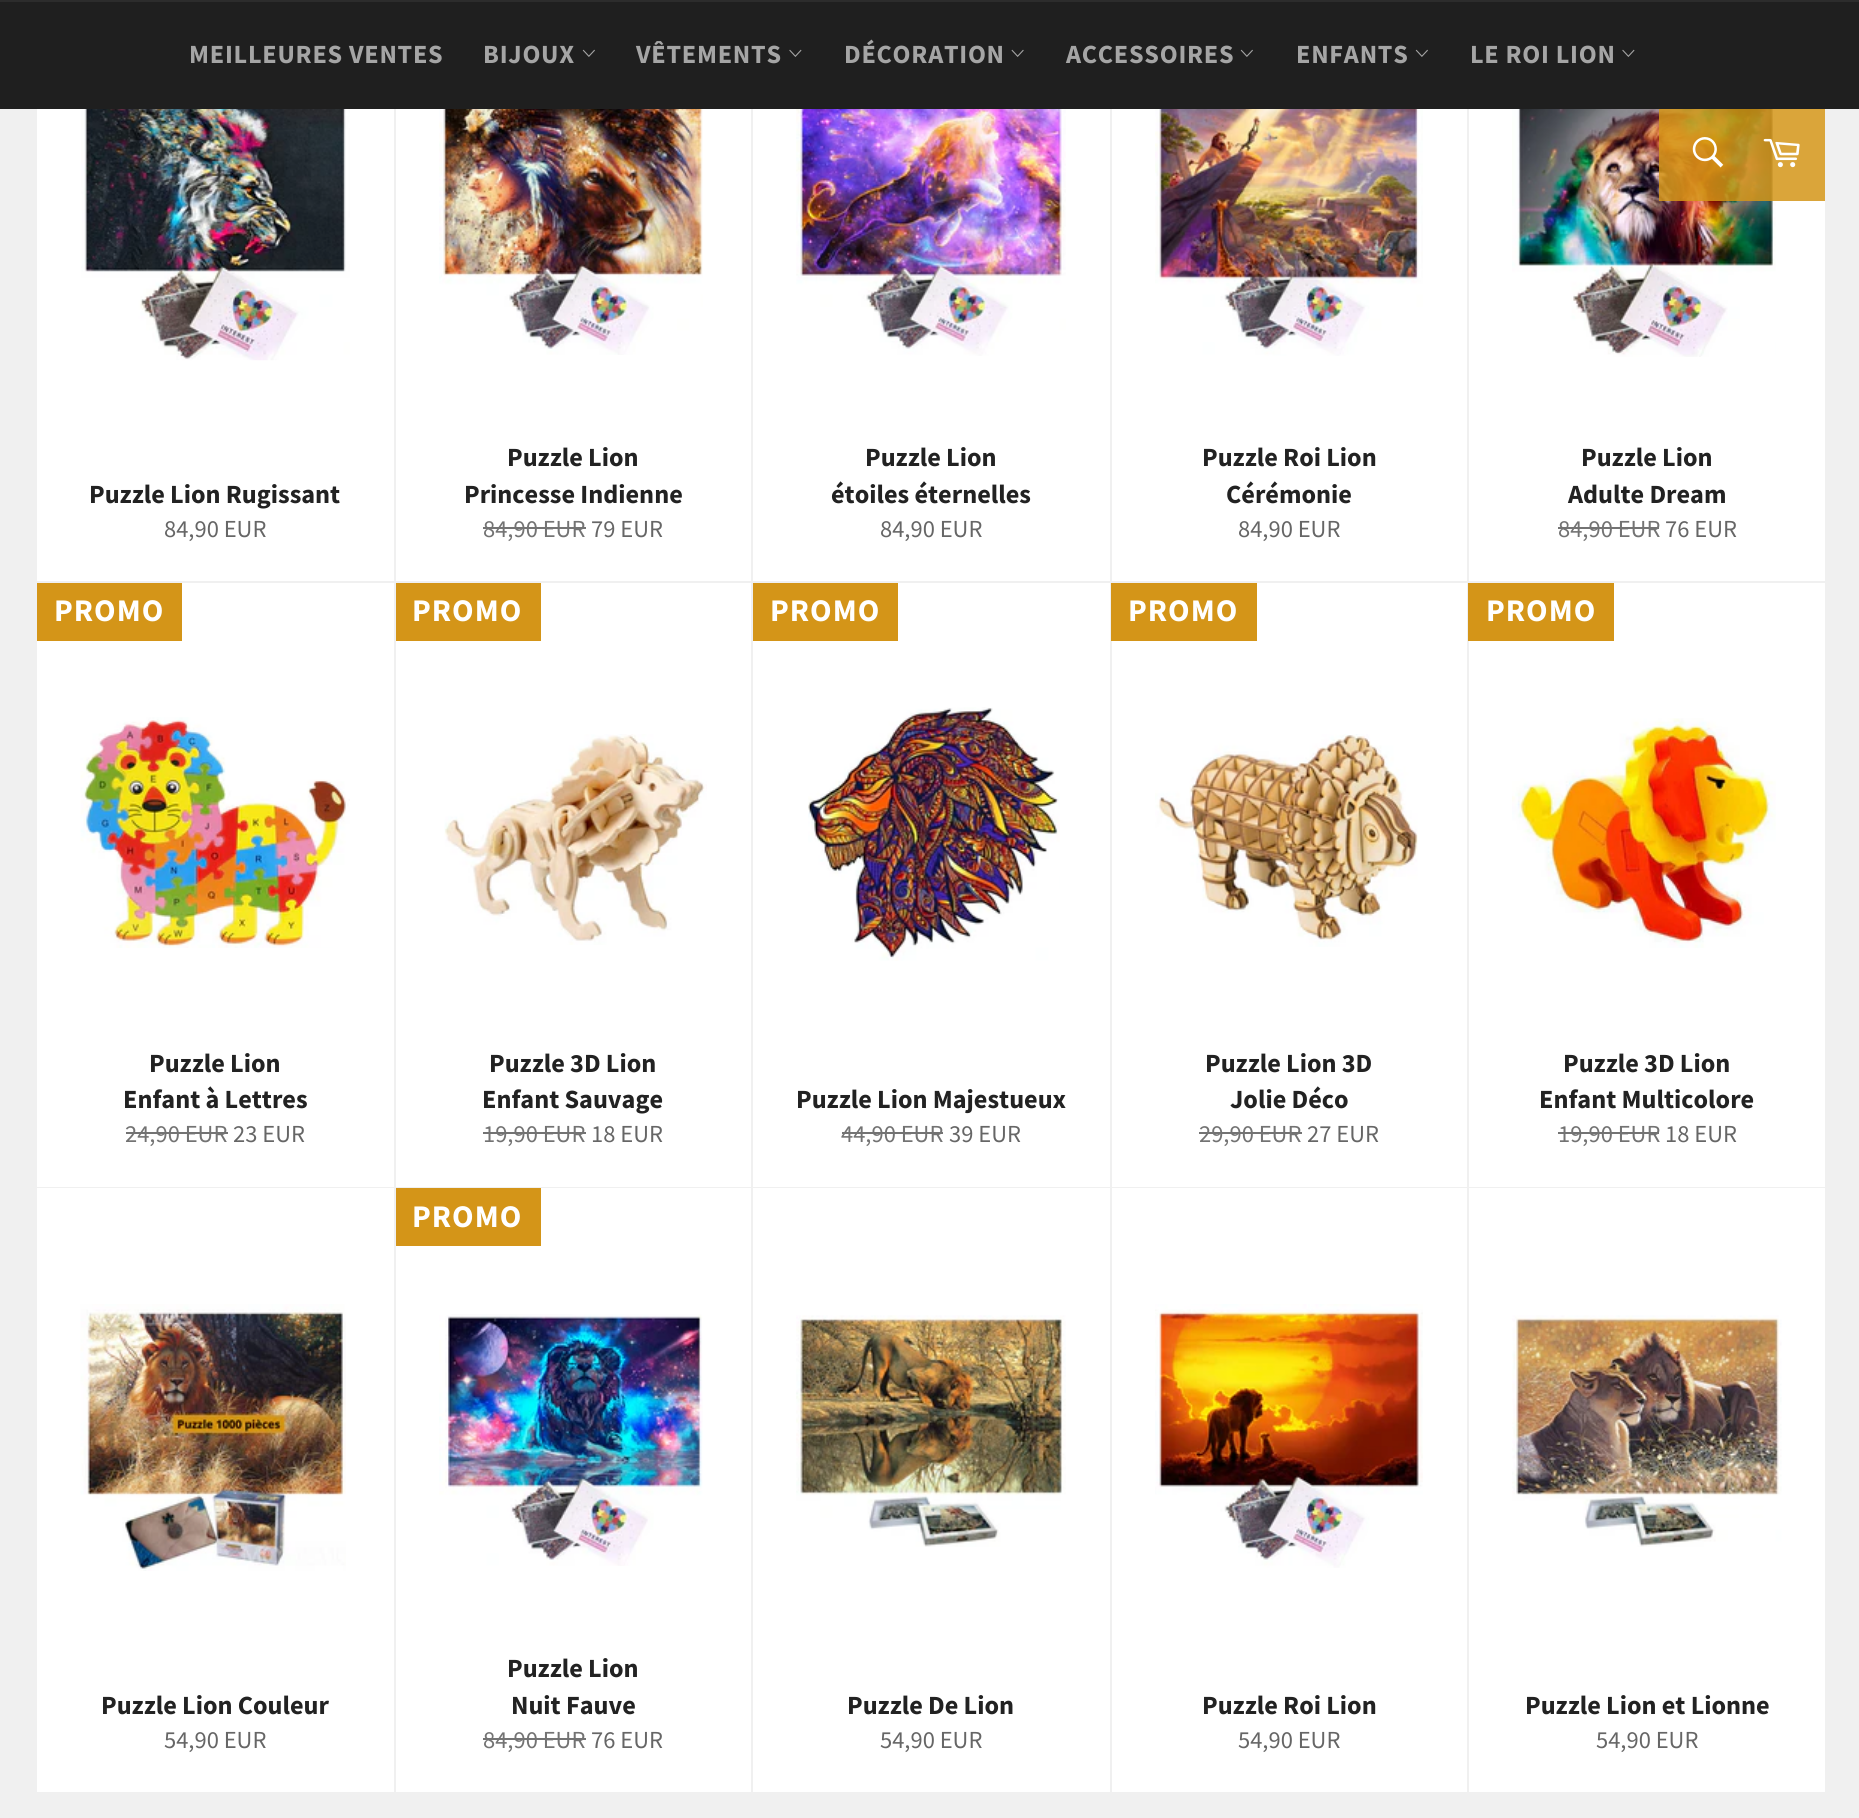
#include <cairo.h>
#include <math.h>
#include <stddef.h>

static cairo_t *c;
static void C(unsigned color){cairo_set_source_rgb(c, (color >> 16) / 255.0, (color >> 8 & 255) / 255.0, (color & 255) / 255.0);}
static void F(const char *family, double size, int italic, int bold){cairo_select_font_face(c, family, italic ? CAIRO_FONT_SLANT_ITALIC : CAIRO_FONT_SLANT_NORMAL,bold ? CAIRO_FONT_WEIGHT_BOLD : CAIRO_FONT_WEIGHT_NORMAL);cairo_set_font_size(c, size);}
static void T(double x, double y, const char *s){cairo_move_to(c, x, y);cairo_show_text(c, s);}
static void L(double x, double y, const char *s, double letter, double word){cairo_move_to(c, x, y);while (*s) {char ch[5] = {0};int n = 0;do ch[n++] = *s++; while ((*s & 0xC0) == 0x80);cairo_show_text(c, ch);cairo_rel_move_to(c, letter + word * (*ch == ' '), 0);}}
static void R(double x, double y, double w, double h){cairo_rectangle(c, x, y, w, h);cairo_fill(c);}
static void I(const char *path, double x, double y, double w, double h){cairo_surface_t *image = cairo_image_surface_create_from_png(path);cairo_save(c);cairo_set_source_surface(c, image, x, y);cairo_rectangle(c, x, y, w, h);cairo_fill(c);cairo_restore(c);cairo_surface_destroy(image);}
int main(void) {
cairo_surface_t *surface = cairo_image_surface_create(CAIRO_FORMAT_RGB24, 1859, 1818);
c = cairo_create(surface);
cairo_font_options_t *options = cairo_font_options_create();
cairo_font_options_set_hint_metrics(options, CAIRO_HINT_METRICS_OFF);
cairo_font_options_set_hint_style(options, CAIRO_HINT_STYLE_NONE);
cairo_set_font_options(c, options);
cairo_set_miter_limit(c, 4);
C(0xf0f0f0);
cairo_paint(c);
C(0x1f1f1f);
R(0,2,1859,107);
C(0x2c2c2c);
R(0,0,1859,2);
F("Source Sans Pro",26.25,0,1);
C(0xa5a5a5);
L(189,63,"MEILLEURES VENTES",.75,0);
L(483,63,"BIJOUX",.75,0);
I("1.png",582,49,13,8);
L(636,63,"VÊTEMENTS",.75,0);
I("2.png",789,49,13,8);
L(844,63,"DÉCORATION",.75,0);
I("3.png",1011,49,13,8);
L(1066,63,"ACCESSOIRES",.75,0);
I("1.png",1240,49,13,8);
L(1296,63,"ENFANTS",.75,0);
I("1.png",1415,49,13,8);
L(1470,63,"LE ROI LION",.75,0);
I("2.png",1622,49,13,8);
C(0xffffff);
R(1469,109,356,472);
I("10.png",1512,109,264,248);
cairo_set_source_rgba(c,0.831,0.584,0.094,0.85);
R(1659,109,166,92);
I("4.png",1692,137,32,31);
I("5.png",1763,138,37,30);
C(0xffffff);
R(37,109,357,472);
I("6.png",81,109,269,252);
C(0x222222);
T(89,503,"Puzzle Lion Rugissant");
F("Source Sans Pro",24.5,0,0);
C(0x666666);
T(164,537,"84,90 EUR");
C(0xffffff);
R(396,109,355,472);
I("7.png",439,109,264,246);
F("Source Sans Pro",26.25,0,1);
C(0x222222);
T(507,466,"Puzzle Lion");
T(464,503,"Princesse Indienne");
F("Source Sans Pro",24.5,0,0);
C(0x737373);
T(483,537,"84,90 EUR");
R(483,527,103,2);
C(0x666666);
T(591,537,"79 EUR");
C(0xffffff);
R(753,109,357,472);
I("8.png",796,109,270,247);
F("Source Sans Pro",26.25,0,1);
C(0x222222);
T(865,466,"Puzzle Lion");
T(831,503,"étoiles éternelles");
F("Source Sans Pro",24.5,0,0);
C(0x666666);
T(880,537,"84,90 EUR");
C(0xffffff);
R(1112,109,355,472);
I("9.png",1155,109,268,247);
F("Source Sans Pro",26.25,0,1);
C(0x222222);
T(1202,466,"Puzzle Roi Lion");
T(1226,503,"Cérémonie");
F("Source Sans Pro",24.5,0,0);
C(0x666666);
T(1238,537,"84,90 EUR");
F("Source Sans Pro",26.25,0,1);
C(0x222222);
T(1581,466,"Puzzle Lion");
T(1568,503,"Adulte Dream");
F("Source Sans Pro",24.5,0,0);
C(0x737373);
T(1558,537,"84,90 EUR");
R(1558,527,101,2);
C(0x666666);
T(1665,537,"76 EUR");
C(0xffffff);
R(37,583,357,604);
C(0xd49518);
R(37,583,145,58);
F("Source Sans Pro",31.5,0,1);
C(0xffffff);
L(54,621,"PROMO",1,0);
I("11.png",80,717,270,231);
F("Source Sans Pro",26.25,0,1);
C(0x222222);
T(149,1072,"Puzzle Lion");
T(123,1108,"Enfant à Lettres");
F("Source Sans Pro",24.5,0,0);
C(0x737373);
T(125,1142,"24,90 EUR");
R(126,1132,102,2);
C(0x666666);
T(233,1142,"23 EUR");
C(0xffffff);
R(396,583,355,604);
C(0xd49518);
R(396,583,145,58);
F("Source Sans Pro",31.5,0,1);
C(0xffffff);
L(412,621,"PROMO",1,0);
I("12.png",444,734,263,211);
F("Source Sans Pro",26.25,0,1);
C(0x222222);
T(489,1072,"Puzzle 3D Lion");
T(482,1108,"Enfant Sauvage");
F("Source Sans Pro",24.5,0,0);
C(0x737373);
T(483,1142,"19,90 EUR");
R(483,1132,103,2);
C(0x666666);
T(591,1142,"18 EUR");
C(0xffffff);
R(753,583,357,604);
C(0xd49518);
R(753,583,145,58);
F("Source Sans Pro",31.5,0,1);
C(0xffffff);
L(770,621,"PROMO",1,0);
I("13.png",808,707,252,254);
F("Source Sans Pro",26.25,0,1);
C(0x222222);
T(796,1108,"Puzzle Lion Majestueux");
F("Source Sans Pro",24.5,0,0);
C(0x737373);
T(841,1142,"44,90 EUR");
R(842,1132,101,2);
C(0x666666);
T(949,1142,"39 EUR");
C(0xffffff);
R(1112,583,355,604);
C(0xd49518);
R(1111,583,146,58);
F("Source Sans Pro",31.5,0,1);
C(0xffffff);
L(1128,621,"PROMO",1,0);
I("14.png",1155,734,263,213);
F("Source Sans Pro",26.25,0,1);
C(0x222222);
T(1205,1072,"Puzzle Lion 3D");
T(1230,1108,"Jolie Déco");
F("Source Sans Pro",24.5,0,0);
C(0x737373);
T(1199,1142,"29,90 EUR");
R(1199,1132,103,2);
C(0x666666);
T(1307,1142,"27 EUR");
C(0xffffff);
R(1469,583,356,604);
C(0xd49518);
R(1468,583,146,58);
F("Source Sans Pro",31.5,0,1);
C(0xffffff);
L(1486,621,"PROMO",1,0);
I("15.png",1512,718,264,230);
F("Source Sans Pro",26.25,0,1);
C(0x222222);
T(1563,1072,"Puzzle 3D Lion");
T(1539,1108,"Enfant Multicolore");
F("Source Sans Pro",24.5,0,0);
C(0x737373);
T(1558,1142,"19,90 EUR");
R(1558,1132,101,2);
C(0x666666);
T(1665,1142,"18 EUR");
C(0xffffff);
R(37,1188,357,604);
I("16.png",80,1304,266,267);
F("Source Sans Pro",26.25,0,1);
C(0x222222);
T(101,1714,"Puzzle Lion Couleur");
F("Source Sans Pro",24.5,0,0);
C(0x666666);
T(164,1748,"54,90 EUR");
C(0xffffff);
R(396,1188,355,604);
C(0xd49518);
R(396,1188,145,58);
F("Source Sans Pro",31.5,0,1);
C(0xffffff);
L(412,1227,"PROMO",1,0);
I("17.png",439,1314,264,252);
F("Source Sans Pro",26.25,0,1);
C(0x222222);
T(507,1677,"Puzzle Lion");
T(511,1714,"Nuit Fauve");
F("Source Sans Pro",24.5,0,0);
C(0x737373);
T(483,1748,"84,90 EUR");
R(483,1738,103,2);
C(0x666666);
T(591,1748,"76 EUR");
C(0xffffff);
R(753,1188,357,604);
I("18.png",796,1315,270,232);
F("Source Sans Pro",26.25,0,1);
C(0x222222);
T(847,1714,"Puzzle De Lion");
F("Source Sans Pro",24.5,0,0);
C(0x666666);
T(880,1748,"54,90 EUR");
C(0xffffff);
R(1112,1188,355,604);
I("19.png",1155,1304,268,264);
F("Source Sans Pro",26.25,0,1);
C(0x222222);
T(1202,1714,"Puzzle Roi Lion");
F("Source Sans Pro",24.5,0,0);
C(0x666666);
T(1238,1748,"54,90 EUR");
C(0xffffff);
R(1469,1188,356,604);
I("20.png",1512,1315,270,232);
F("Source Sans Pro",26.25,0,1);
C(0x222222);
T(1525,1714,"Puzzle Lion et Lionne");
F("Source Sans Pro",24.5,0,0);
C(0x666666);
T(1596,1748,"54,90 EUR");
cairo_surface_write_to_png(surface, "o.png");
cairo_font_options_destroy(options);
cairo_destroy(c);
cairo_surface_destroy(surface);
return 0;
}
